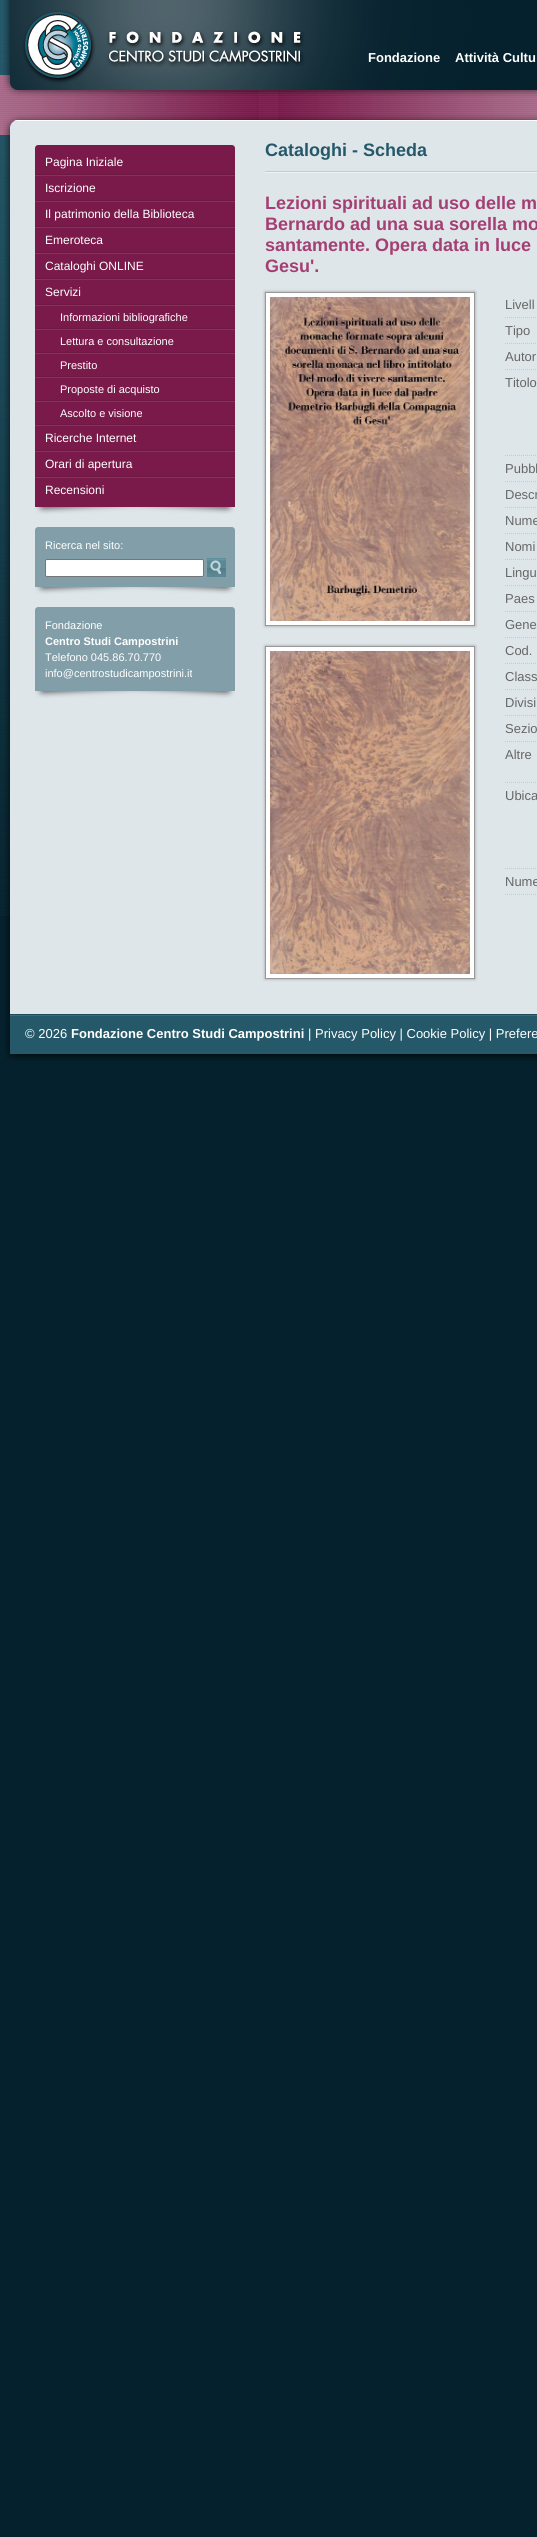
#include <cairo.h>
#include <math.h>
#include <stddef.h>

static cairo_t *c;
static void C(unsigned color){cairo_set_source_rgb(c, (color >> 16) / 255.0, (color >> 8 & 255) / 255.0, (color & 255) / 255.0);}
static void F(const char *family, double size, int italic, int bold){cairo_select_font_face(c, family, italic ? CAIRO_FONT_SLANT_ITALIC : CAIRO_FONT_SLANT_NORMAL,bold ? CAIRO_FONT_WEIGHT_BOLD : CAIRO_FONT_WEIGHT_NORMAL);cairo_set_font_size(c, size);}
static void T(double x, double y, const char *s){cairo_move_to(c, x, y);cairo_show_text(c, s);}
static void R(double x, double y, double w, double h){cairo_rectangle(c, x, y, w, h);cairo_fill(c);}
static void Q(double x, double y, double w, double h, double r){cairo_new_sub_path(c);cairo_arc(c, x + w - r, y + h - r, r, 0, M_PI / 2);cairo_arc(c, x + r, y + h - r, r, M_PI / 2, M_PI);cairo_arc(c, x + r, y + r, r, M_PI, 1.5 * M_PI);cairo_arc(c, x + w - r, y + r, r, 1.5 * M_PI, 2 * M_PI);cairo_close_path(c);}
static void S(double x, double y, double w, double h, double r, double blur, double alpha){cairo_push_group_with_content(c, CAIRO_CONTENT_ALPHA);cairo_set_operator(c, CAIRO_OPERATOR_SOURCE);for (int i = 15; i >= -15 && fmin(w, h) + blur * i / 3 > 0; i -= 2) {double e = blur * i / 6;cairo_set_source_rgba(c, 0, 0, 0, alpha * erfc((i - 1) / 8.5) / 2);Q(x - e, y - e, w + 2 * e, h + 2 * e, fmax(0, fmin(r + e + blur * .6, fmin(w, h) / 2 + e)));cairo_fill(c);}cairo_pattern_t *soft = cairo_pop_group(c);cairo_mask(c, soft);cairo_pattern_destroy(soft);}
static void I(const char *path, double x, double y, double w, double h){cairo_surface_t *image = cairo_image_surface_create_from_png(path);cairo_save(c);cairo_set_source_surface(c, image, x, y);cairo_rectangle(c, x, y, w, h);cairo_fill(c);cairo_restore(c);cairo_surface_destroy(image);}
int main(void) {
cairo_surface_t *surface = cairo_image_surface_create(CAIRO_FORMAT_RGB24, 537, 2537);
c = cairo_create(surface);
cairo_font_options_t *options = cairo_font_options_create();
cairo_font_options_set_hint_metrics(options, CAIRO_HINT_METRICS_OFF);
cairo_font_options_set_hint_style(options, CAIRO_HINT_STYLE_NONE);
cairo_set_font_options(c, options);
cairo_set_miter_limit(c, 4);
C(0x05212d);
cairo_paint(c);
I("1.png",0,0,10,916);
C(0x7a1a4a);
R(0,75,537,60);
I("12.png",0,75,537,59);
I("13.png",0,75,278,60);
I("14.png",259,90,278,30);
I("2.png",3,0,534,97);
F("Liberation Sans",13,0,1);
C(0xffffff);
T(368,62,"Fondazione");
T(455,62,"Attività Cultu");
I("3.png",3,114,534,21);
I("4.png",4,135,533,879);
C(0x7a1a4a);
cairo_new_path(c);
cairo_move_to(c,38,145);
cairo_line_to(c,232,145);
cairo_curve_to(c,233.5,145,235,146.5,235,148);
cairo_line_to(c,235,507);
cairo_line_to(c,35,507);
cairo_line_to(c,35,148);
cairo_curve_to(c,35,146.5,36.5,145,38,145);
cairo_close_path(c);
cairo_fill(c);
F("Liberation Sans",12,0,0);
C(0xffffff);
T(45,166,"Pagina Iniziale");
I("5.png",35,174,200,2);
T(45,192,"Iscrizione");
I("5.png",35,200,200,2);
T(45,218,"Il patrimonio della Biblioteca");
I("5.png",35,226,200,2);
T(45,244,"Emeroteca");
I("5.png",35,252,200,2);
T(45,270,"Cataloghi ONLINE");
I("5.png",35,278,200,2);
T(45,296,"Servizi");
I("5.png",35,304,200,2);
F("Liberation Sans",11,0,0);
T(60,321,"Informazioni bibliografiche");
I("5.png",35,328,200,2);
T(60,345,"Lettura e consultazione");
I("5.png",35,352,200,2);
T(60,369,"Prestito");
I("5.png",35,376,200,2);
T(60,393,"Proposte di acquisto");
I("5.png",35,400,200,2);
T(60,417,"Ascolto e visione");
I("5.png",35,424,200,2);
F("Liberation Sans",12,0,0);
T(45,442,"Ricerche Internet");
I("5.png",35,450,200,2);
T(45,468,"Orari di apertura");
I("5.png",35,476,200,2);
T(45,494,"Recensioni");
I("6.png",35,507,200,7);
C(0x829fa9);
cairo_new_path(c);
cairo_move_to(c,38,527);
cairo_line_to(c,232,527);
cairo_curve_to(c,233.5,527,235,528.5,235,530);
cairo_line_to(c,235,587);
cairo_line_to(c,35,587);
cairo_line_to(c,35,530);
cairo_curve_to(c,35,528.5,36.5,527,38,527);
cairo_close_path(c);
cairo_fill(c);
F("Liberation Sans",11,0,0);
C(0xffffff);
T(45,549,"Ricerca nel sito:");
Q(45.5,559.5,158,17,1.5);
cairo_fill_preserve(c);
C(0x767676);
cairo_set_line_width(c,1);
cairo_stroke(c);
I("7.png",207,558,19,19);
I("6.png",35,587,200,7);
C(0x829fa9);
cairo_new_path(c);
cairo_move_to(c,38,607);
cairo_line_to(c,232,607);
cairo_curve_to(c,233.5,607,235,608.5,235,610);
cairo_line_to(c,235,691);
cairo_line_to(c,35,691);
cairo_line_to(c,35,610);
cairo_curve_to(c,35,608.5,36.5,607,38,607);
cairo_close_path(c);
cairo_fill(c);
C(0xffffff);
T(45,629,"Fondazione");
F("Liberation Sans",11,0,1);
T(45,645,"Centro Studi Campostrini");
F("Liberation Sans",11,0,0);
T(45,661,"Telefono 045.86.70.770");
T(45,677,"info@centrostudicampostrini.it");
I("6.png",35,691,200,7);
F("Liberation Sans",18,0,1);
C(0x255969);
T(265,156,"Cataloghi - Scheda");
I("8.png",265,171,272,2);
C(0xa43f73);
T(265,209,"Lezioni spirituali ad uso delle m");
T(265,230,"Bernardo ad una sua sorella mo");
T(265,251,"santamente. Opera data in luce");
T(265,272,"Gesu'.");
C(0x999999);
S(265,292,210,334,0,1.5,1);
cairo_rectangle(c,265.5,292.5,209,333);
C(0x999999);
cairo_stroke(c);
cairo_rectangle(c,268,295,204,328);
C(0xffffff);
cairo_set_line_width(c,4);
cairo_stroke(c);
I("9.png",270,297,200,324);
C(0x999999);
S(265,646,210,333,0,1.5,1);
cairo_rectangle(c,265.5,646.5,209,332);
C(0x999999);
cairo_set_line_width(c,1);
cairo_stroke(c);
cairo_rectangle(c,268,649,204,327);
C(0xffffff);
cairo_set_line_width(c,4);
cairo_stroke(c);
I("10.png",270,651,200,323);
cairo_new_path(c);
cairo_move_to(c,505,317.5);
cairo_line_to(c,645,317.5);
cairo_move_to(c,505,343.5);
cairo_line_to(c,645,343.5);
cairo_move_to(c,505,369.5);
cairo_line_to(c,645,369.5);
C(0xc4cacd);
cairo_set_line_width(c,1);
cairo_set_dash(c,(double[]){1,1},2,0);
cairo_stroke(c);
F("Liberation Sans",13,0,0);
C(0x666666);
T(505,309,"Livell");
T(505,335,"Tipo");
T(505,361,"Autor");
cairo_new_path(c);
cairo_move_to(c,505,455.5);
cairo_line_to(c,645,455.5);
cairo_move_to(c,505,481.5);
cairo_line_to(c,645,481.5);
cairo_move_to(c,505,507.5);
cairo_line_to(c,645,507.5);
C(0xc4cacd);
cairo_stroke(c);
C(0x666666);
T(505,387,"Titolo");
T(505,473,"Pubbl");
T(505,499,"Descr");
cairo_new_path(c);
cairo_move_to(c,505,533.5);
cairo_line_to(c,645,533.5);
cairo_move_to(c,505,559.5);
cairo_line_to(c,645,559.5);
cairo_move_to(c,505,585.5);
cairo_line_to(c,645,585.5);
C(0xc4cacd);
cairo_stroke(c);
C(0x666666);
T(505,525,"Nume");
T(505,551,"Nomi");
T(505,577,"Lingu");
cairo_new_path(c);
cairo_move_to(c,505,611.5);
cairo_line_to(c,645,611.5);
cairo_move_to(c,505,637.5);
cairo_line_to(c,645,637.5);
cairo_move_to(c,505,663.5);
cairo_line_to(c,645,663.5);
C(0xc4cacd);
cairo_stroke(c);
C(0x666666);
T(505,603,"Paes");
T(505,629,"Gene");
T(505,655,"Cod.");
cairo_new_path(c);
cairo_move_to(c,505,689.5);
cairo_line_to(c,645,689.5);
cairo_move_to(c,505,715.5);
cairo_line_to(c,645,715.5);
cairo_move_to(c,505,741.5);
cairo_line_to(c,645,741.5);
C(0xc4cacd);
cairo_stroke(c);
C(0x666666);
T(505,681,"Class");
T(505,707,"Divisi");
T(505,733,"Sezio");
cairo_new_path(c);
cairo_move_to(c,505,782.5);
cairo_line_to(c,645,782.5);
C(0xc4cacd);
cairo_stroke(c);
C(0x666666);
T(505,759,"Altre");
cairo_new_path(c);
cairo_move_to(c,505,868.5);
cairo_line_to(c,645,868.5);
cairo_move_to(c,505,894.5);
cairo_line_to(c,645,894.5);
C(0xc4cacd);
cairo_stroke(c);
C(0x666666);
T(505,800,"Ubica");
T(505,886,"Nume");
I("11.png",5,1014,532,47);
C(0xffffff);
T(25,1038,"© 2026");
F("Liberation Sans",13,0,1);
T(71,1038,"Fondazione Centro Studi Campostrini");
F("Liberation Sans",13,0,0);
T(308,1038,"| Privacy Policy | Cookie Policy | Prefere");
cairo_surface_write_to_png(surface, "o.png");
cairo_font_options_destroy(options);
cairo_destroy(c);
cairo_surface_destroy(surface);
return 0;
}
